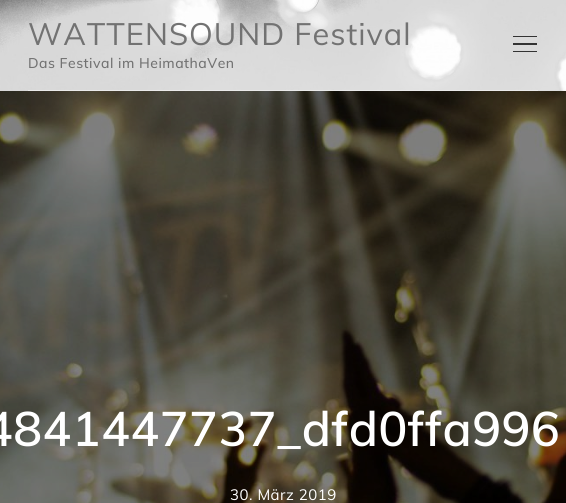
#include <cairo.h>
#include <math.h>
#include <stddef.h>

static cairo_t *c;
static void C(unsigned color){cairo_set_source_rgb(c, (color >> 16) / 255.0, (color >> 8 & 255) / 255.0, (color & 255) / 255.0);}
static void F(const char *family, double size, int italic, int bold){cairo_select_font_face(c, family, italic ? CAIRO_FONT_SLANT_ITALIC : CAIRO_FONT_SLANT_NORMAL,bold ? CAIRO_FONT_WEIGHT_BOLD : CAIRO_FONT_WEIGHT_NORMAL);cairo_set_font_size(c, size);}
static void L(double x, double y, const char *s, double letter, double word){cairo_move_to(c, x, y);while (*s) {char ch[5] = {0};int n = 0;do ch[n++] = *s++; while ((*s & 0xC0) == 0x80);cairo_show_text(c, ch);cairo_rel_move_to(c, letter + word * (*ch == ' '), 0);}}
static void R(double x, double y, double w, double h){cairo_rectangle(c, x, y, w, h);cairo_fill(c);}
static void I(const char *path, double x, double y, double w, double h){cairo_surface_t *image = cairo_image_surface_create_from_png(path);cairo_save(c);cairo_set_source_surface(c, image, x, y);cairo_rectangle(c, x, y, w, h);cairo_fill(c);cairo_restore(c);cairo_surface_destroy(image);}
int main(void) {
cairo_surface_t *surface = cairo_image_surface_create(CAIRO_FORMAT_RGB24, 566, 503);
c = cairo_create(surface);
cairo_font_options_t *options = cairo_font_options_create();
cairo_font_options_set_hint_metrics(options, CAIRO_HINT_METRICS_OFF);
cairo_font_options_set_hint_style(options, CAIRO_HINT_STYLE_NONE);
cairo_set_font_options(c, options);
cairo_set_miter_limit(c, 4);
C(0xffffff);
cairo_paint(c);
I("1.png",0,0,566,91);
cairo_set_source_rgba(c,1,1,1,0.1);
R(0,0,566,91);
F("Muli",30.75,0,0);
C(0x727272);
L(28,45,"WATTENSOUND Festival",1,0);
F("Muli Medium",14,0,0);
L(28,68,"Das Festival im HeimathaVen",.5,0);
C(0x333333);
R(513,36,24,1);
R(513,43,24,2);
R(513,51,24,1);
C(0xeaeaea);
R(28,90,510,1);
I("2.png",0,91,566,412);
F("Muli SemiBold",48,0,0);
C(0xffffff);
L(-16,446,"4841447737_dfd0ffa996",.5,0);
F("Muli",15,0,0);
L(230,500,"30. März 2019",.5,0);
cairo_surface_write_to_png(surface, "o.png");
cairo_font_options_destroy(options);
cairo_destroy(c);
cairo_surface_destroy(surface);
return 0;
}
